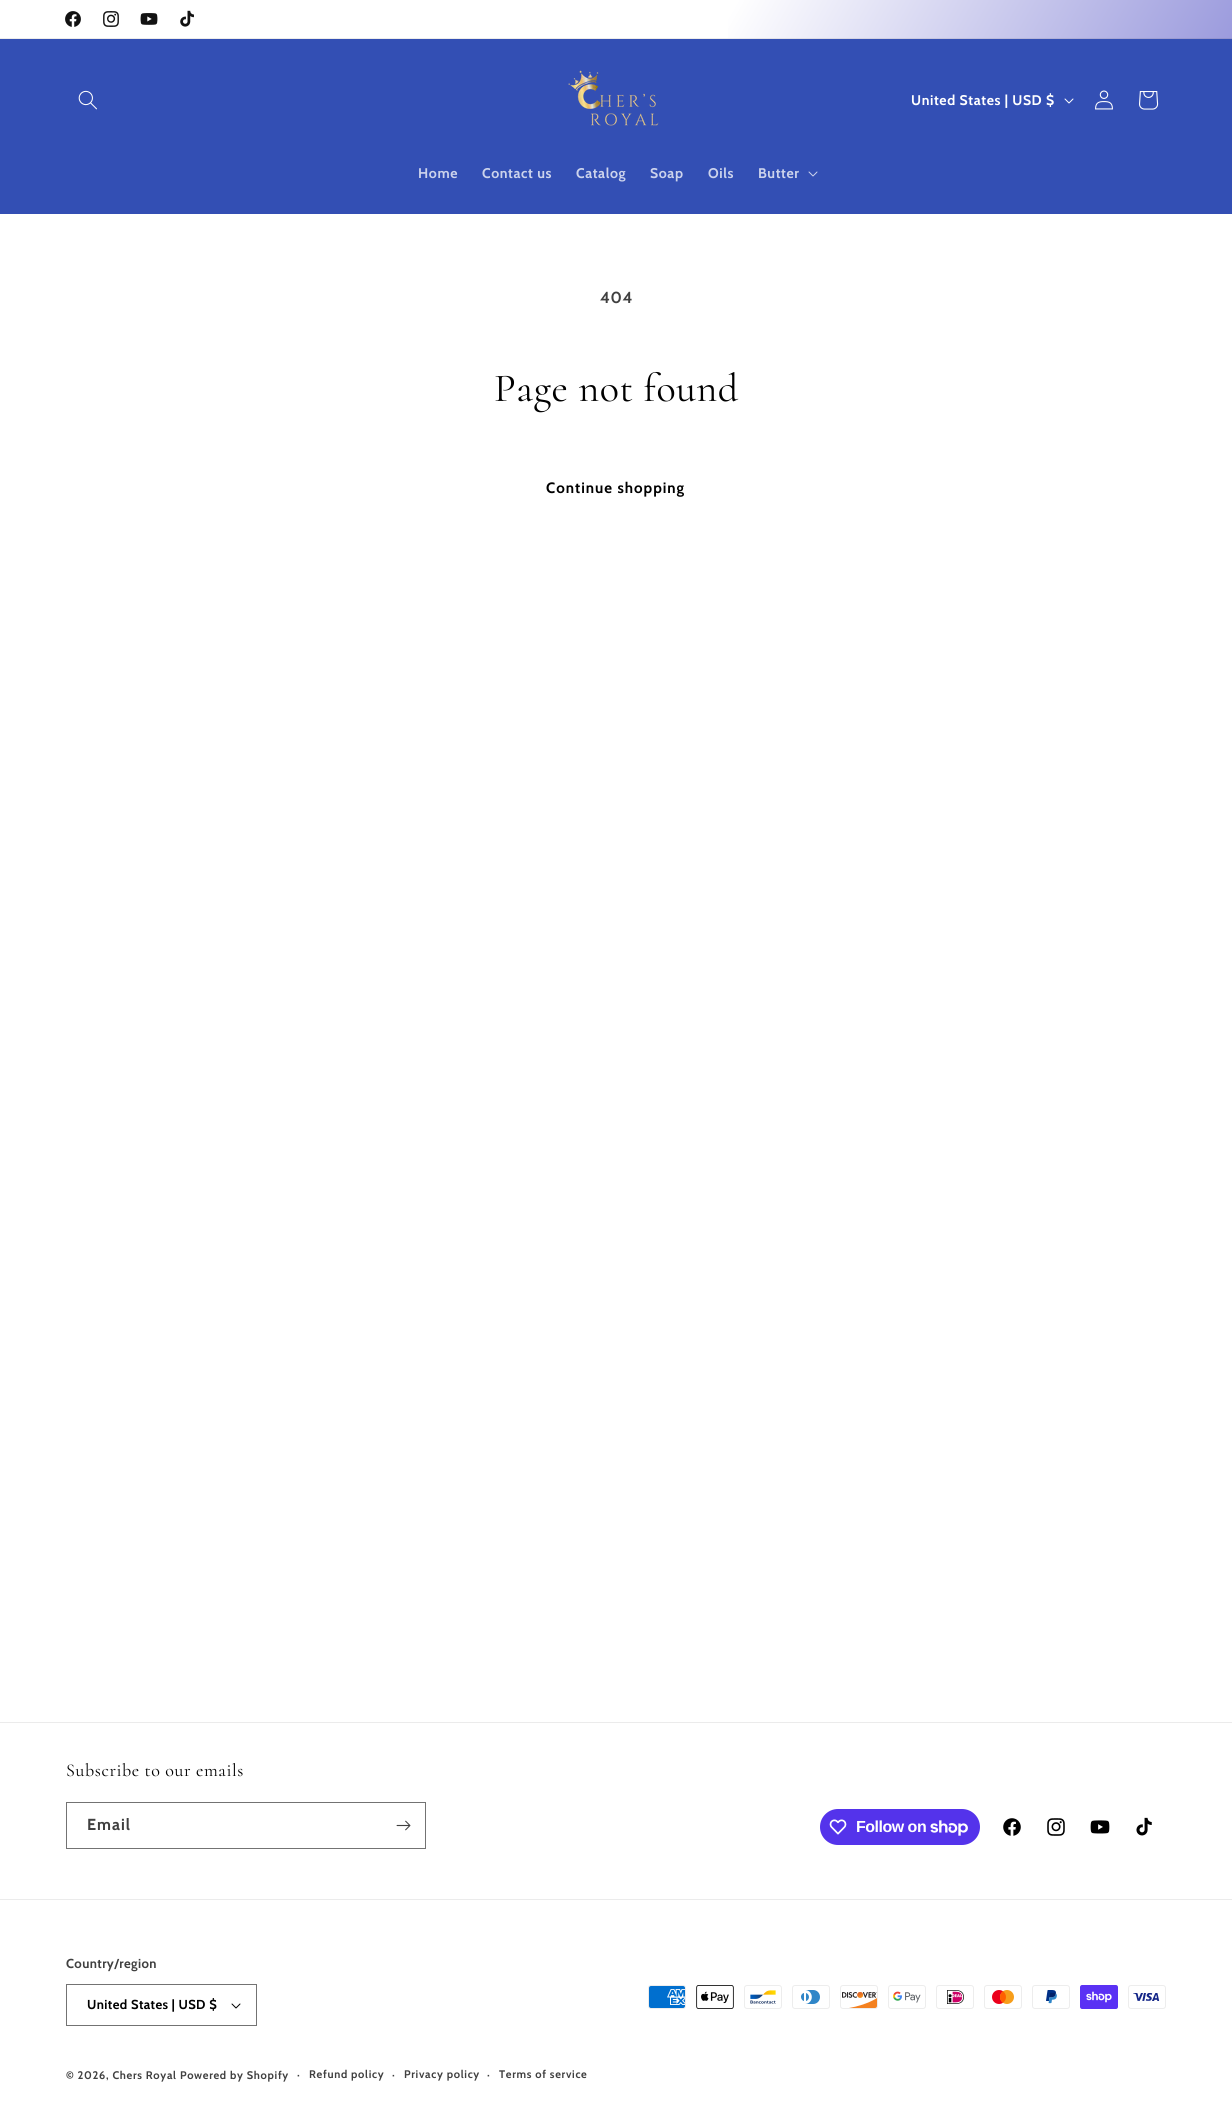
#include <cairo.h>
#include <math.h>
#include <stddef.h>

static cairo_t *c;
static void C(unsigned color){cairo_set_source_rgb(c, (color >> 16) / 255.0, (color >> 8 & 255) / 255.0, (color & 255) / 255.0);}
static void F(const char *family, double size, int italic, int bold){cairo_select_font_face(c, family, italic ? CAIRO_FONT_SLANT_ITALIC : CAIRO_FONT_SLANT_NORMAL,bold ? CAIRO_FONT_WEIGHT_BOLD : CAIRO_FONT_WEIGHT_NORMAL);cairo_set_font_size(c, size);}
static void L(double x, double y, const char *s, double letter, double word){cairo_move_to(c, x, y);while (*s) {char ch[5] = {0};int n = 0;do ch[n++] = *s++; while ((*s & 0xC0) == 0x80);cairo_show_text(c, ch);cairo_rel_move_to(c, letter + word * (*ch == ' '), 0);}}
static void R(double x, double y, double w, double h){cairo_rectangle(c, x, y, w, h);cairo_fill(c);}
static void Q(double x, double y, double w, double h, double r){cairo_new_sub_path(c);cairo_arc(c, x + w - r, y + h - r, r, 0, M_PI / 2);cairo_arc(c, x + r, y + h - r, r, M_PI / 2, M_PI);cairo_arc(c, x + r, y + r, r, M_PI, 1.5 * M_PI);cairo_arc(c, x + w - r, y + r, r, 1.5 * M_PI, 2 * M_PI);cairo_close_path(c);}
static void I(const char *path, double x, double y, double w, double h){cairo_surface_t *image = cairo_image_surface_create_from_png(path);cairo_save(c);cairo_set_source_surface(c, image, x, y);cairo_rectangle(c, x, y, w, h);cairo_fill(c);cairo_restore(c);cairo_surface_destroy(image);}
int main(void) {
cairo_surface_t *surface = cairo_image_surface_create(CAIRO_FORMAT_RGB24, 1232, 2121);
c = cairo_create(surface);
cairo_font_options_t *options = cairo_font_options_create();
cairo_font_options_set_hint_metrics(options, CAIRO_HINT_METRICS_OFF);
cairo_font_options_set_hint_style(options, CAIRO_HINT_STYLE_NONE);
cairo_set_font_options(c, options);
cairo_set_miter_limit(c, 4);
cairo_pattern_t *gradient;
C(0xffffff);
cairo_paint(c);
gradient = cairo_pattern_create_linear(-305,529,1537,1592);
cairo_pattern_add_color_stop_rgba(gradient,.3,1,1,1,1);
cairo_pattern_add_color_stop_rgba(gradient,.83,0.02,0.016,0.667,1);
cairo_set_source(c,gradient);
cairo_pattern_destroy(gradient);
R(728,0,504,38);
gradient = cairo_pattern_create_linear(-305,529,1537,1592);
cairo_pattern_add_color_stop_rgba(gradient,.3,0.925,0.925,0.925,1);
cairo_pattern_add_color_stop_rgba(gradient,.83,0.024,0.02,0.62,1);
cairo_set_source(c,gradient);
cairo_pattern_destroy(gradient);
R(0,38,1232,1);
I("1.png",65,11,16,16);
I("2.png",103,11,16,16);
I("3.png",140,13,18,12);
I("4.png",180,10,14,17);
C(0x334fb4);
R(0,39,1232,175);
I("5.png",78,90,19,20);
I("6.png",568,70,91,56);
F("Cabin",14,0,1);
C(0xffffff);
L(911,105,"United States | USD $",.6,0);
I("7.png",1064,98,10,6);
I("8.png",1095,90,18,20);
I("9.png",1139,91,20,19);
C(0xccd3ec);
L(418,178,"Home",.6,0);
L(482,178,"Contact us",.6,0);
L(576,178,"Catalog",.6,0);
L(650,178,"Soap",.6,0);
L(708,178,"Oils",.6,0);
L(758,178,"Butter",.6,0);
I("10.png",808,171,10,6);
F("Cabin",16,0,1);
C(0x404040);
L(600,303,"404",.6,0);
F("Cormorant",40,0,0);
C(0x000000);
L(494,401,"Page not found",.6,0);
F("Cabin",15,0,1);
L(546,493,"Continue shopping",1,0);
C(0xebebeb);
R(0,1722,1232,1);
F("Cormorant",18,0,0);
C(0x000000);
L(66,1776,"Subscribe to our emails",.6,0);
cairo_rectangle(c,66.5,1802.5,359,46);
C(0x737373);
cairo_set_line_width(c,1);
cairo_stroke(c);
F("Cabin",16,0,1);
C(0x404040);
L(87,1830,"Email",1,0);
I("11.png",396,1820,15,11);
C(0x5433eb);
Q(820,1809,160,36,18);
cairo_fill(c);
I("12.png",829,1819,18,16);
F("Liberation Sans",16,0,1);
C(0xffffff);
L(856,1832,"Follow on",-.5,0);
I("13.png",930,1820,38,16);
I("14.png",1003,1818,18,18);
I("15.png",1047,1818,18,18);
I("16.png",1090,1820,20,14);
I("17.png",1136,1817,16,19);
C(0xebebeb);
R(0,1899,1232,1);
F("Cabin",13,0,1);
C(0x404040);
L(66,1968,"Country/region",.4,0);
I("18.png",231,2003,10,6);
cairo_rectangle(c,66.5,1984.5,190,41);
C(0x737373);
cairo_stroke(c);
C(0x000000);
L(87,2009,"United States | USD $",.4,0);
I("19.png",648,1985,38,24);
I("20.png",696,1985,38,24);
I("21.png",744,1985,38,24);
I("22.png",792,1985,38,24);
I("23.png",840,1985,38,24);
I("24.png",888,1985,38,24);
I("25.png",936,1985,38,24);
I("26.png",984,1985,38,24);
I("27.png",1032,1985,38,24);
I("28.png",1080,1985,38,24);
I("29.png",1128,1985,38,24);
F("Cabin",11,0,1);
C(0x404040);
L(66,2079,"© 2026, Chers Royal Powered by Shopify",.7,0);
F("Cabin",12,0,1);
L(297,2079,"·",.7,0);
F("Cabin",11,0,1);
L(309,2078,"Refund policy",.7,0);
F("Cabin",12,0,1);
L(392,2079,"·",.7,0);
F("Cabin",11,0,1);
L(404,2078,"Privacy policy",.7,0);
F("Cabin",12,0,1);
L(487,2079,"·",.7,0);
F("Cabin",11,0,1);
L(499,2078,"Terms of service",.7,0);
cairo_surface_write_to_png(surface, "o.png");
cairo_font_options_destroy(options);
cairo_destroy(c);
cairo_surface_destroy(surface);
return 0;
}
